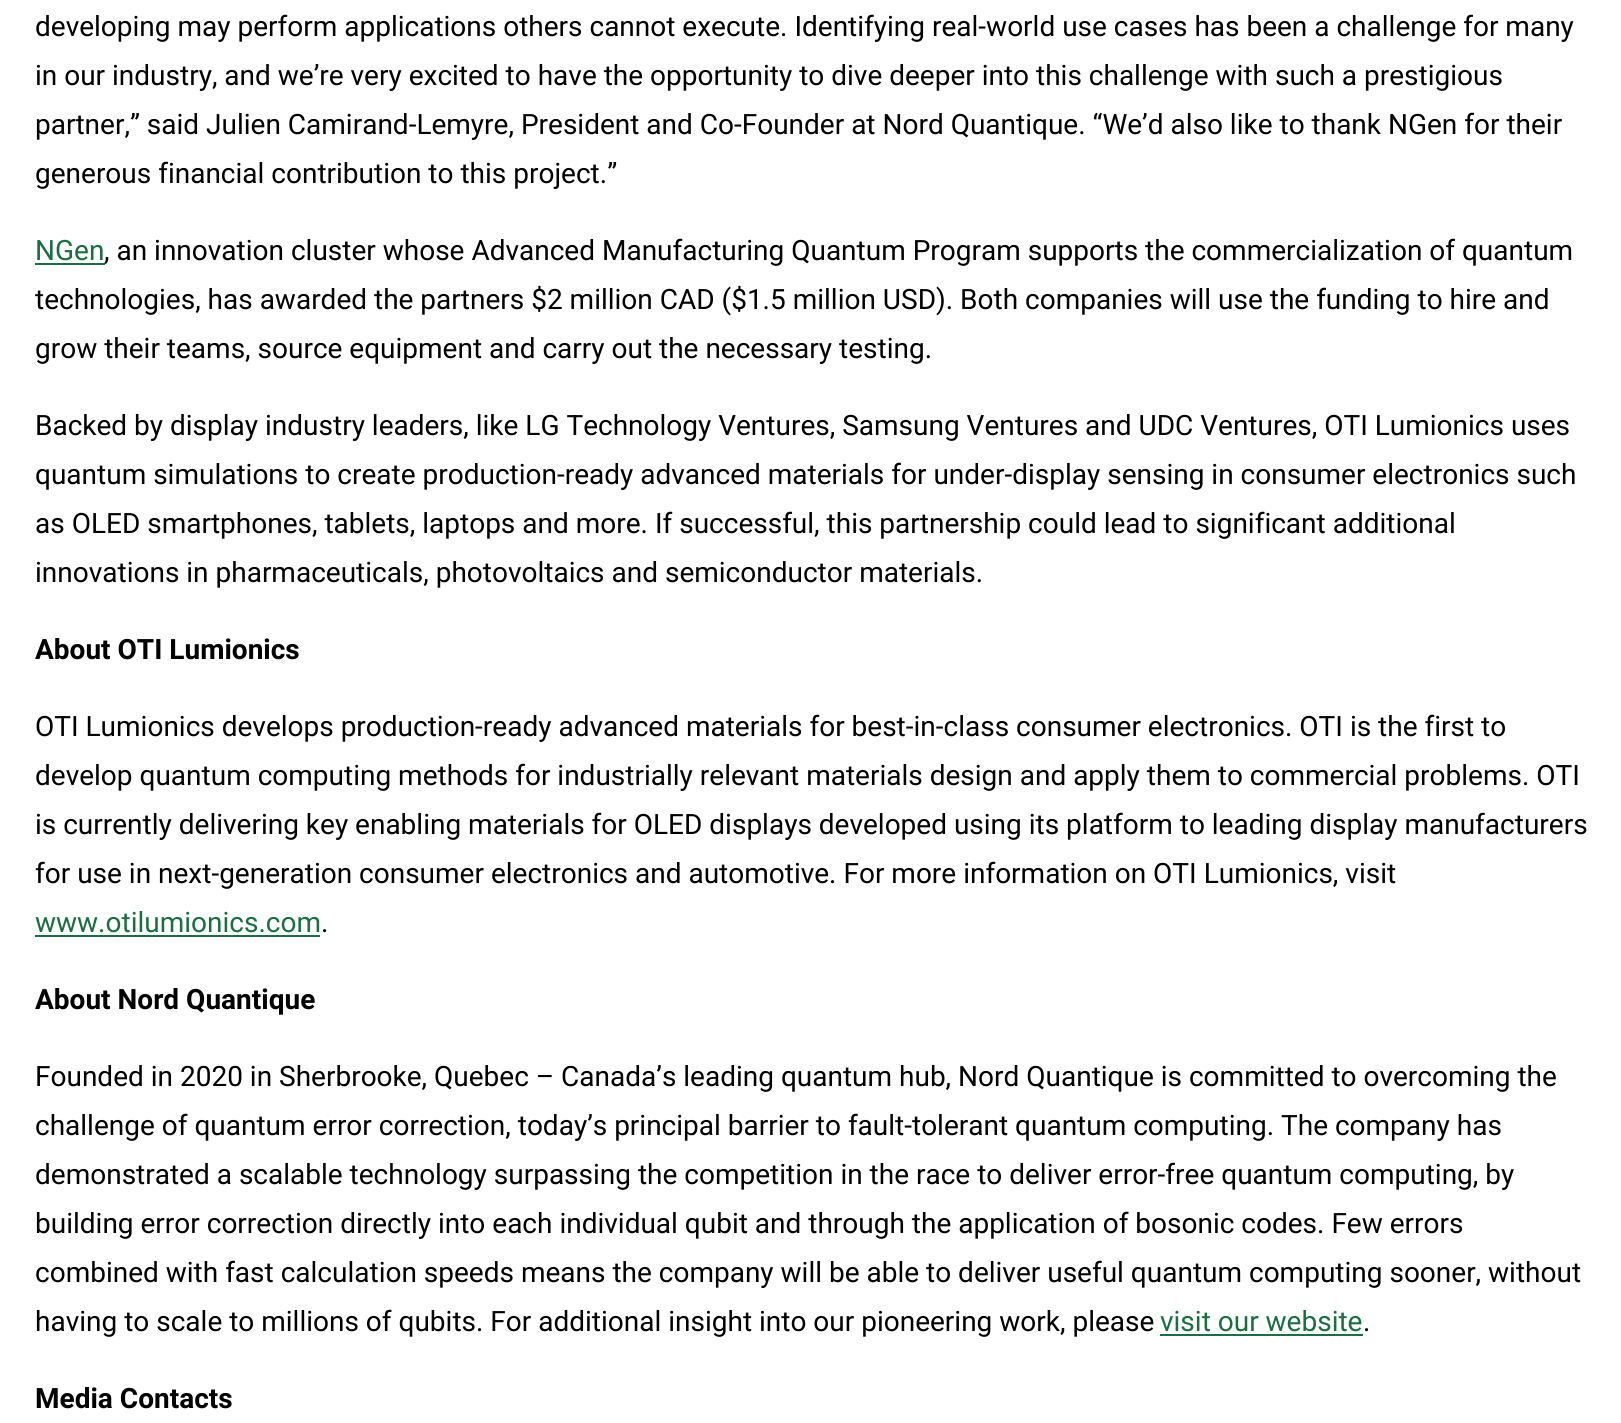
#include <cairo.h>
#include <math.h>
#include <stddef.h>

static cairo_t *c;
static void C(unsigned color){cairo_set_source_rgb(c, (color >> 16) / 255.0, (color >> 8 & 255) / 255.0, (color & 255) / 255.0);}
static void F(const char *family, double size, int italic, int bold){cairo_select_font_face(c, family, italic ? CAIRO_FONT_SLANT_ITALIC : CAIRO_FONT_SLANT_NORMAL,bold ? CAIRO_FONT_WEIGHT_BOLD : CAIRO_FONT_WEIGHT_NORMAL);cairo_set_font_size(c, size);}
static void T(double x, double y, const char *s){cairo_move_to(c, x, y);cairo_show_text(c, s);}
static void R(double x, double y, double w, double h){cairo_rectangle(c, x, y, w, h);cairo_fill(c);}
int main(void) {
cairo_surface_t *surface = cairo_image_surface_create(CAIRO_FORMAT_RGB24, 1621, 1423);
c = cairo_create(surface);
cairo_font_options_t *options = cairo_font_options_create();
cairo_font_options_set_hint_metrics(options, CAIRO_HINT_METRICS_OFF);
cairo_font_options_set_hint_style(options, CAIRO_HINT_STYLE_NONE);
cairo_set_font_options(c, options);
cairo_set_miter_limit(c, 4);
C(0xffffff);
cairo_paint(c);
F("Roboto",28,0,0);
C(0x000000);
T(35,36,"developing may perform applications others cannot execute. Identifying real-world use cases has been a challenge for many");
T(35,85,"in our industry, and we’re very excited to have the opportunity to dive deeper into this challenge with such a prestigious");
T(35,134,"partner,” said Julien Camirand-Lemyre, President and Co-Founder at Nord Quantique. “We’d also like to thank NGen for their");
T(35,183,"generous financial contribution to this project.”");
C(0x1a6e41);
T(35,260,"NGen");
R(35,263,70,2);
C(0x000000);
T(104,260,", an innovation cluster whose Advanced Manufacturing Quantum Program supports the commercialization of quantum");
T(35,309,"technologies, has awarded the partners $2 million CAD ($1.5 million USD). Both companies will use the funding to hire and");
T(35,358,"grow their teams, source equipment and carry out the necessary testing.");
T(35,435,"Backed by display industry leaders, like LG Technology Ventures, Samsung Ventures and UDC Ventures, OTI Lumionics uses");
T(35,484,"quantum simulations to create production-ready advanced materials for under-display sensing in consumer electronics such");
T(35,533,"as OLED smartphones, tablets, laptops and more. If successful, this partnership could lead to significant additional");
T(35,582,"innovations in pharmaceuticals, photovoltaics and semiconductor materials.");
F("Roboto",28,0,1);
T(35,659,"About OTI Lumionics");
F("Roboto",28,0,0);
T(35,736,"OTI Lumionics develops production-ready advanced materials for best-in-class consumer electronics. OTI is the first to");
T(35,785,"develop quantum computing methods for industrially relevant materials design and apply them to commercial problems. OTI");
T(35,834,"is currently delivering key enabling materials for OLED displays developed using its platform to leading display manufacturers");
T(35,883,"for use in next-generation consumer electronics and automotive. For more information on OTI Lumionics, visit");
C(0x1a6e41);
T(35,932,"www.otilumionics.com");
R(35,935,285,2);
C(0x000000);
T(321,932,".");
F("Roboto",28,0,1);
T(35,1009,"About Nord Quantique");
F("Roboto",28,0,0);
T(35,1086,"Founded in 2020 in Sherbrooke, Quebec – Canada’s leading quantum hub, Nord Quantique is committed to overcoming the");
T(35,1135,"challenge of quantum error correction, today’s principal barrier to fault-tolerant quantum computing. The company has");
T(35,1184,"demonstrated a scalable technology surpassing the competition in the race to deliver error-free quantum computing, by");
T(35,1233,"building error correction directly into each individual qubit and through the application of bosonic codes. Few errors");
T(35,1282,"combined with fast calculation speeds means the company will be able to deliver useful quantum computing sooner, without");
T(35,1331,"having to scale to millions of qubits. For additional insight into our pioneering work, please");
C(0x1a6e41);
T(1160,1331,"visit our website");
R(1160,1334,203,2);
C(0x000000);
T(1363,1331,".");
F("Roboto",28,0,1);
T(35,1408,"Media Contacts");
cairo_surface_write_to_png(surface, "o.png");
cairo_font_options_destroy(options);
cairo_destroy(c);
cairo_surface_destroy(surface);
return 0;
}
